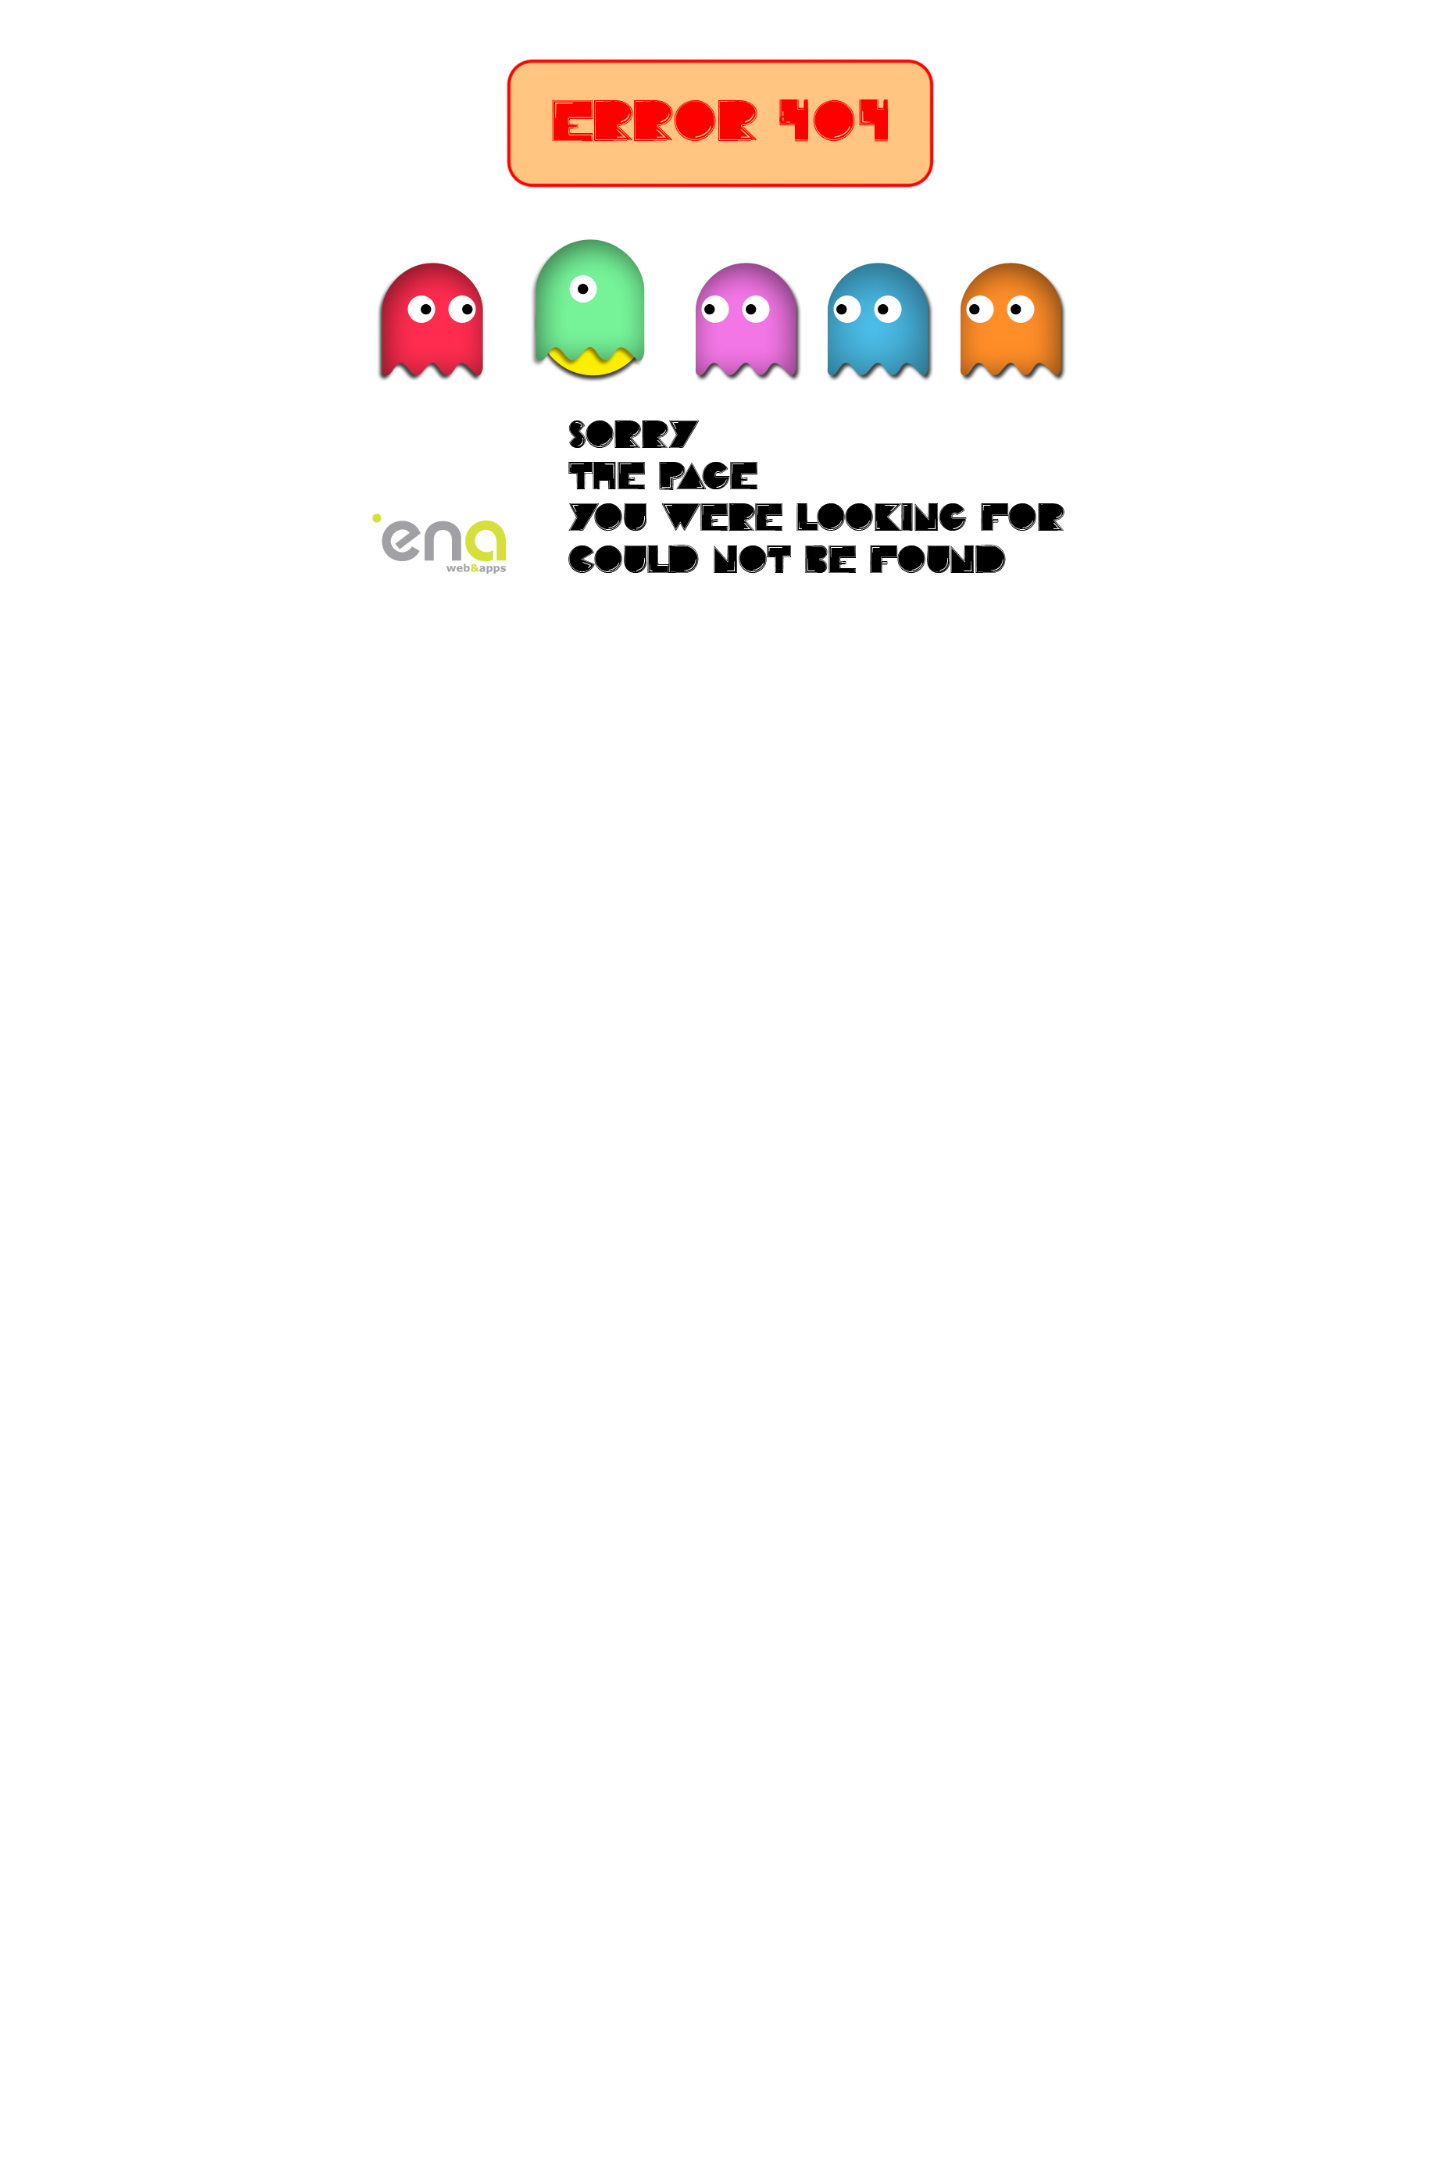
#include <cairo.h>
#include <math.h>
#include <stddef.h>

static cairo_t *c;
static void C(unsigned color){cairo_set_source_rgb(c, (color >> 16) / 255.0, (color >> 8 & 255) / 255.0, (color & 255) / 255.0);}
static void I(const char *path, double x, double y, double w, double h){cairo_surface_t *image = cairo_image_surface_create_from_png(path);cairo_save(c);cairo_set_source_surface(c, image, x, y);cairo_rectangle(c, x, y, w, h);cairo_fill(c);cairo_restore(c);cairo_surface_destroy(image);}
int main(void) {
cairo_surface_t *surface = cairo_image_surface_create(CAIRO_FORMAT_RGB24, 1446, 2179);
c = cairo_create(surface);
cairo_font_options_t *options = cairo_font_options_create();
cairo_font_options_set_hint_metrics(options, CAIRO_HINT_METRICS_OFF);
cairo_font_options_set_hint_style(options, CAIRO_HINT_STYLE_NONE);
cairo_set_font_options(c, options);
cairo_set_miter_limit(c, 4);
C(0xffffff);
cairo_paint(c);
I("1.png",372,58,695,516);
cairo_surface_write_to_png(surface, "o.png");
cairo_font_options_destroy(options);
cairo_destroy(c);
cairo_surface_destroy(surface);
return 0;
}
